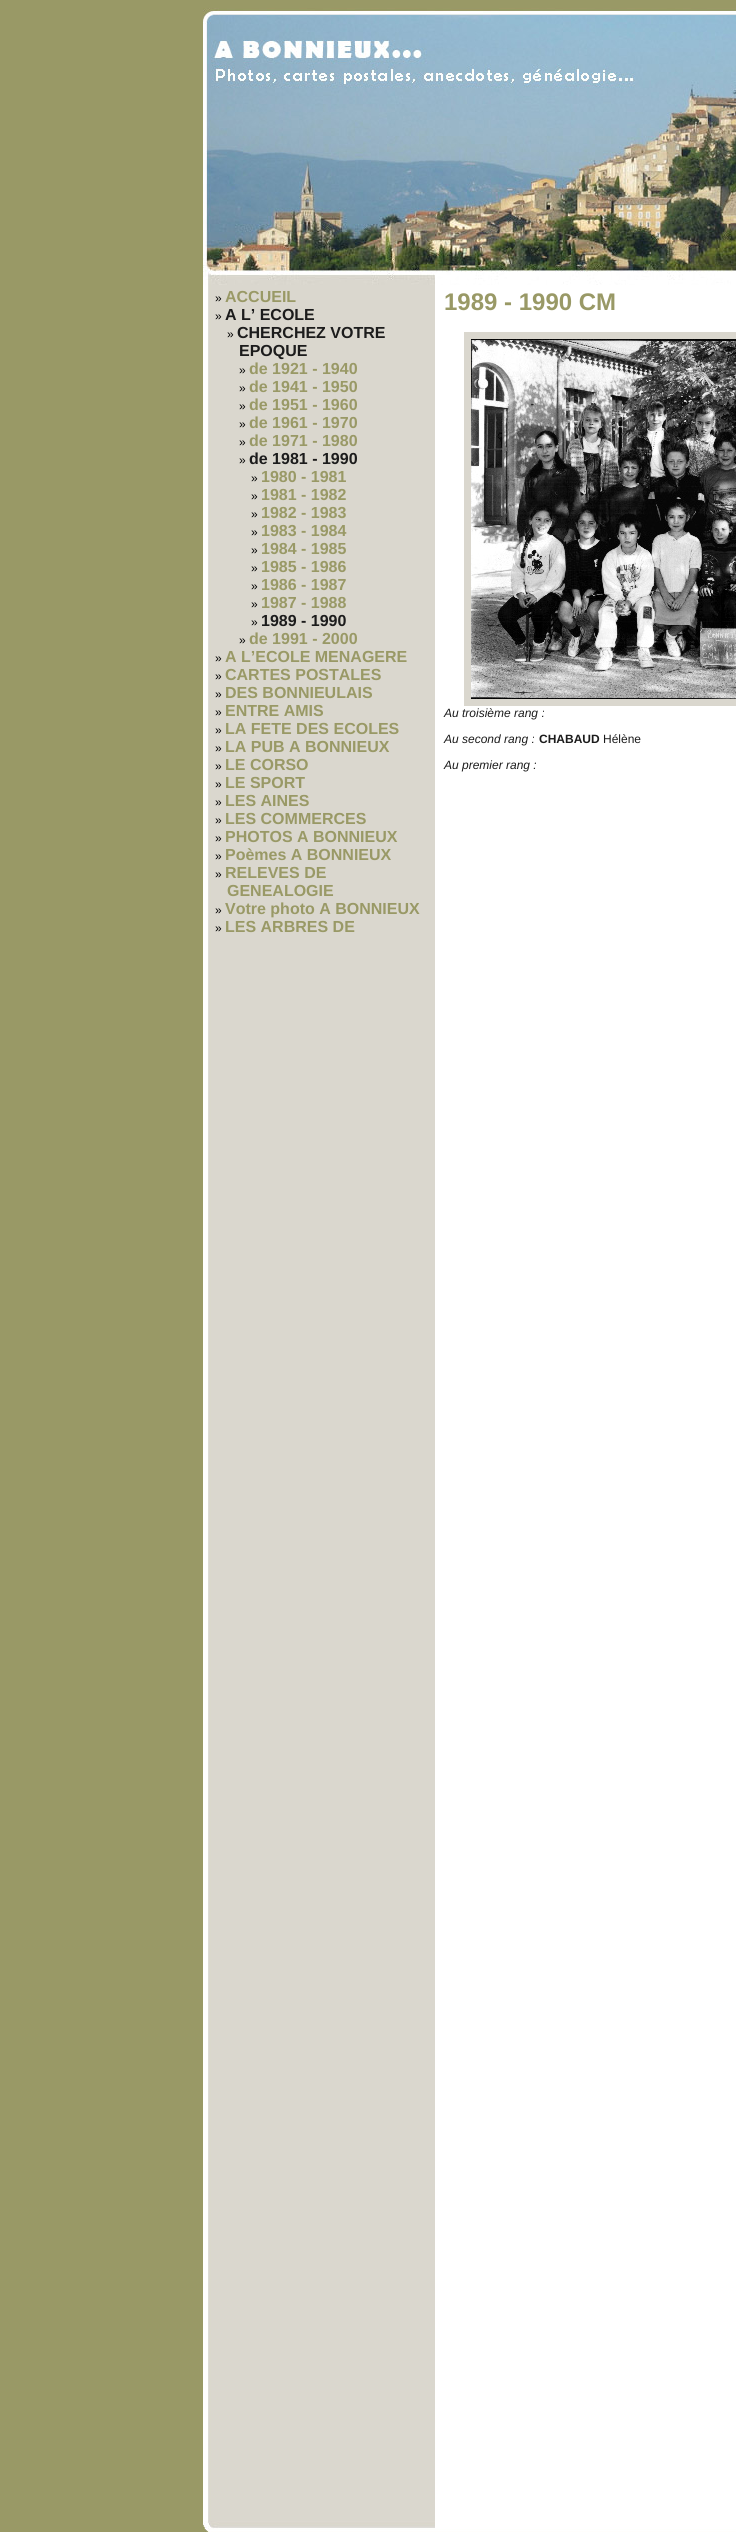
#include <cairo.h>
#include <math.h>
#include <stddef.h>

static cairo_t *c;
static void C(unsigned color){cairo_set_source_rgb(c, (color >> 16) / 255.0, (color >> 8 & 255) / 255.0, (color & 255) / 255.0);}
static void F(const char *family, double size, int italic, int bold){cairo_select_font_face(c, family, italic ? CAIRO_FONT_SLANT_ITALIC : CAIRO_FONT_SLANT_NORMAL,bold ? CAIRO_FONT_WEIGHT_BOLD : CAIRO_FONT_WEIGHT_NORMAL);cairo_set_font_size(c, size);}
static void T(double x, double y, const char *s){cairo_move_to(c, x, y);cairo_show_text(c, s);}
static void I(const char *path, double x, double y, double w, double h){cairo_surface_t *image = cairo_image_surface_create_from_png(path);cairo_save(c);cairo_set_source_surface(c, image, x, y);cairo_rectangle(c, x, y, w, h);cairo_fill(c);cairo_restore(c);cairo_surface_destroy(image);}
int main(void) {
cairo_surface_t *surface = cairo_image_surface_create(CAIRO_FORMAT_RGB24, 736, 2532);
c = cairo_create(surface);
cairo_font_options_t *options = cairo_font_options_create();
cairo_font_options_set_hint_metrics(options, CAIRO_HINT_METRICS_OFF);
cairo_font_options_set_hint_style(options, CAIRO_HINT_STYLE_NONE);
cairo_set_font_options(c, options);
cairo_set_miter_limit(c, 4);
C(0x999966);
cairo_paint(c);
I("1.png",203,8,533,277);
I("2.png",203,285,533,2220);
F("Liberation Sans",12,0,0);
C(0x000000);
T(215,302,"»");
F("Liberation Sans",16,0,1);
C(0x999966);
T(225,302,"ACCUEIL");
F("Liberation Sans",12,0,0);
C(0x000000);
T(215,320,"»");
F("Liberation Sans",16,0,1);
C(0x1c1c1c);
T(225,320,"A L’ ECOLE");
F("Liberation Sans",12,0,0);
C(0x000000);
T(227,338,"»");
F("Liberation Sans",16,0,1);
C(0x1c1c1c);
T(237,338,"CHERCHEZ VOTRE");
T(239,356,"EPOQUE");
F("Liberation Sans",12,0,0);
C(0x000000);
T(239,374,"»");
F("Liberation Sans",16,0,1);
C(0x999966);
T(249,374,"de 1921 - 1940");
F("Liberation Sans",12,0,0);
C(0x000000);
T(239,392,"»");
F("Liberation Sans",16,0,1);
C(0x999966);
T(249,392,"de 1941 - 1950");
F("Liberation Sans",12,0,0);
C(0x000000);
T(239,410,"»");
F("Liberation Sans",16,0,1);
C(0x999966);
T(249,410,"de 1951 - 1960");
F("Liberation Sans",12,0,0);
C(0x000000);
T(239,428,"»");
F("Liberation Sans",16,0,1);
C(0x999966);
T(249,428,"de 1961 - 1970");
F("Liberation Sans",12,0,0);
C(0x000000);
T(239,446,"»");
F("Liberation Sans",16,0,1);
C(0x999966);
T(249,446,"de 1971 - 1980");
F("Liberation Sans",12,0,0);
C(0x000000);
T(239,464,"»");
F("Liberation Sans",16,0,1);
C(0x1c1c1c);
T(249,464,"de 1981 - 1990");
F("Liberation Sans",12,0,0);
C(0x000000);
T(251,482,"»");
F("Liberation Sans",16,0,1);
C(0x999966);
T(261,482,"1980 - 1981");
F("Liberation Sans",12,0,0);
C(0x000000);
T(251,500,"»");
F("Liberation Sans",16,0,1);
C(0x999966);
T(261,500,"1981 - 1982");
F("Liberation Sans",12,0,0);
C(0x000000);
T(251,518,"»");
F("Liberation Sans",16,0,1);
C(0x999966);
T(261,518,"1982 - 1983");
F("Liberation Sans",12,0,0);
C(0x000000);
T(251,536,"»");
F("Liberation Sans",16,0,1);
C(0x999966);
T(261,536,"1983 - 1984");
F("Liberation Sans",12,0,0);
C(0x000000);
T(251,554,"»");
F("Liberation Sans",16,0,1);
C(0x999966);
T(261,554,"1984 - 1985");
F("Liberation Sans",12,0,0);
C(0x000000);
T(251,572,"»");
F("Liberation Sans",16,0,1);
C(0x999966);
T(261,572,"1985 - 1986");
F("Liberation Sans",12,0,0);
C(0x000000);
T(251,590,"»");
F("Liberation Sans",16,0,1);
C(0x999966);
T(261,590,"1986 - 1987");
F("Liberation Sans",12,0,0);
C(0x000000);
T(251,608,"»");
F("Liberation Sans",16,0,1);
C(0x999966);
T(261,608,"1987 - 1988");
F("Liberation Sans",12,0,0);
C(0x000000);
T(251,626,"»");
F("Liberation Sans",16,0,1);
C(0x1c1c1c);
T(261,626,"1989 - 1990");
F("Liberation Sans",12,0,0);
C(0x000000);
T(239,644,"»");
F("Liberation Sans",16,0,1);
C(0x999966);
T(249,644,"de 1991 - 2000");
F("Liberation Sans",12,0,0);
C(0x000000);
T(215,662,"»");
F("Liberation Sans",16,0,1);
C(0x999966);
T(225,662,"A L’ECOLE MENAGERE");
F("Liberation Sans",12,0,0);
C(0x000000);
T(215,680,"»");
F("Liberation Sans",16,0,1);
C(0x999966);
T(225,680,"CARTES POSTALES");
F("Liberation Sans",12,0,0);
C(0x000000);
T(215,698,"»");
F("Liberation Sans",16,0,1);
C(0x999966);
T(225,698,"DES BONNIEULAIS");
F("Liberation Sans",12,0,0);
C(0x000000);
T(215,716,"»");
F("Liberation Sans",16,0,1);
C(0x999966);
T(225,716,"ENTRE AMIS");
F("Liberation Sans",12,0,0);
C(0x000000);
T(215,734,"»");
F("Liberation Sans",16,0,1);
C(0x999966);
T(225,734,"LA FETE DES ECOLES");
F("Liberation Sans",12,0,0);
C(0x000000);
T(215,752,"»");
F("Liberation Sans",16,0,1);
C(0x999966);
T(225,752,"LA PUB A BONNIEUX");
F("Liberation Sans",12,0,0);
C(0x000000);
T(215,770,"»");
F("Liberation Sans",16,0,1);
C(0x999966);
T(225,770,"LE CORSO");
F("Liberation Sans",12,0,0);
C(0x000000);
T(215,788,"»");
F("Liberation Sans",16,0,1);
C(0x999966);
T(225,788,"LE SPORT");
F("Liberation Sans",12,0,0);
C(0x000000);
T(215,806,"»");
F("Liberation Sans",16,0,1);
C(0x999966);
T(225,806,"LES AINES");
F("Liberation Sans",12,0,0);
C(0x000000);
T(215,824,"»");
F("Liberation Sans",16,0,1);
C(0x999966);
T(225,824,"LES COMMERCES");
F("Liberation Sans",12,0,0);
C(0x000000);
T(215,842,"»");
F("Liberation Sans",16,0,1);
C(0x999966);
T(225,842,"PHOTOS A BONNIEUX");
F("Liberation Sans",12,0,0);
C(0x000000);
T(215,860,"»");
F("Liberation Sans",16,0,1);
C(0x999966);
T(225,860,"Poèmes A BONNIEUX");
F("Liberation Sans",12,0,0);
C(0x000000);
T(215,878,"»");
F("Liberation Sans",16,0,1);
C(0x999966);
T(225,878,"RELEVES DE");
T(227,896,"GENEALOGIE");
F("Liberation Sans",12,0,0);
C(0x000000);
T(215,914,"»");
F("Liberation Sans",16,0,1);
C(0x999966);
T(225,914,"Votre photo A BONNIEUX");
F("Liberation Sans",12,0,0);
C(0x000000);
T(215,932,"»");
F("Liberation Sans",16,0,1);
C(0x999966);
T(225,932,"LES ARBRES DE");
F("Liberation Sans",24,0,1);
T(444,310,"1989 - 1990 CM");
cairo_rectangle(c,467.5,335.5,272,367);
C(0xdad7ce);
cairo_set_line_width(c,7);
cairo_stroke(c);
I("3.png",471,339,265,360);
F("Liberation Sans",12,1,0);
C(0x1c1c1c);
T(444,717,"Au troisième rang :");
T(444,743,"Au second rang :");
F("Liberation Sans",12,0,1);
T(539,743,"CHABAUD");
F("Liberation Sans",12,0,0);
T(603,743,"Hélène");
F("Liberation Sans",12,1,0);
T(444,769,"Au premier rang :");
I("4.png",203,2505,533,27);
cairo_surface_write_to_png(surface, "o.png");
cairo_font_options_destroy(options);
cairo_destroy(c);
cairo_surface_destroy(surface);
return 0;
}
